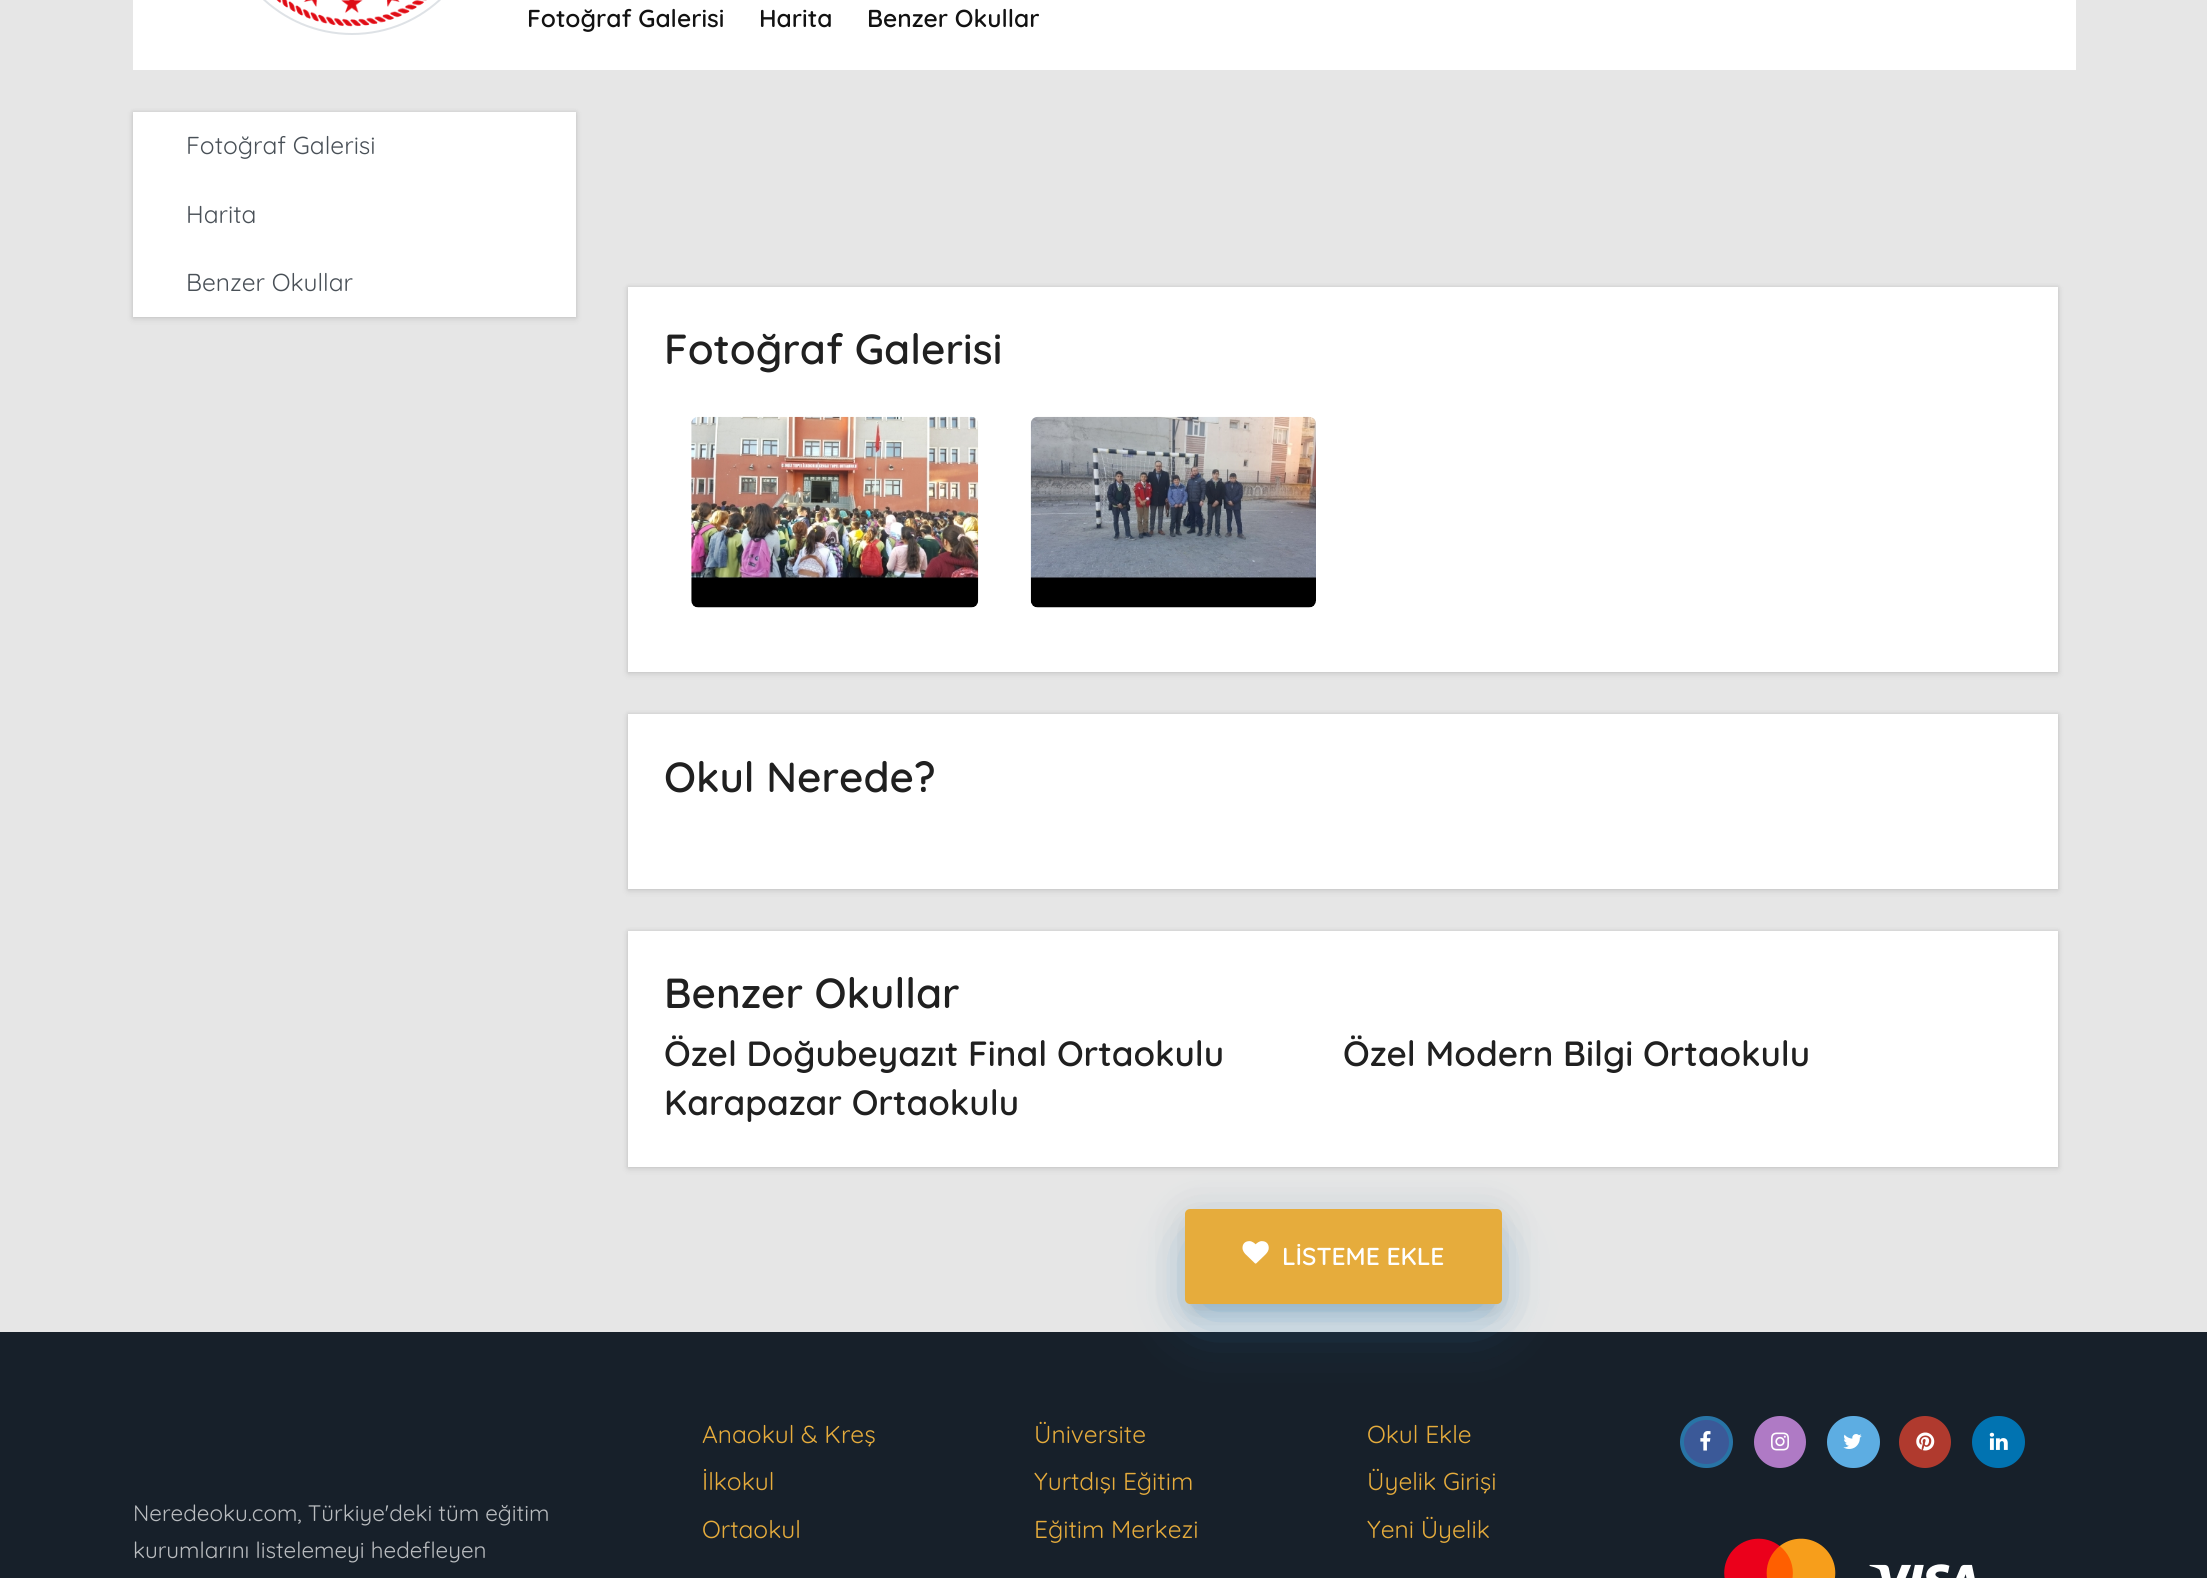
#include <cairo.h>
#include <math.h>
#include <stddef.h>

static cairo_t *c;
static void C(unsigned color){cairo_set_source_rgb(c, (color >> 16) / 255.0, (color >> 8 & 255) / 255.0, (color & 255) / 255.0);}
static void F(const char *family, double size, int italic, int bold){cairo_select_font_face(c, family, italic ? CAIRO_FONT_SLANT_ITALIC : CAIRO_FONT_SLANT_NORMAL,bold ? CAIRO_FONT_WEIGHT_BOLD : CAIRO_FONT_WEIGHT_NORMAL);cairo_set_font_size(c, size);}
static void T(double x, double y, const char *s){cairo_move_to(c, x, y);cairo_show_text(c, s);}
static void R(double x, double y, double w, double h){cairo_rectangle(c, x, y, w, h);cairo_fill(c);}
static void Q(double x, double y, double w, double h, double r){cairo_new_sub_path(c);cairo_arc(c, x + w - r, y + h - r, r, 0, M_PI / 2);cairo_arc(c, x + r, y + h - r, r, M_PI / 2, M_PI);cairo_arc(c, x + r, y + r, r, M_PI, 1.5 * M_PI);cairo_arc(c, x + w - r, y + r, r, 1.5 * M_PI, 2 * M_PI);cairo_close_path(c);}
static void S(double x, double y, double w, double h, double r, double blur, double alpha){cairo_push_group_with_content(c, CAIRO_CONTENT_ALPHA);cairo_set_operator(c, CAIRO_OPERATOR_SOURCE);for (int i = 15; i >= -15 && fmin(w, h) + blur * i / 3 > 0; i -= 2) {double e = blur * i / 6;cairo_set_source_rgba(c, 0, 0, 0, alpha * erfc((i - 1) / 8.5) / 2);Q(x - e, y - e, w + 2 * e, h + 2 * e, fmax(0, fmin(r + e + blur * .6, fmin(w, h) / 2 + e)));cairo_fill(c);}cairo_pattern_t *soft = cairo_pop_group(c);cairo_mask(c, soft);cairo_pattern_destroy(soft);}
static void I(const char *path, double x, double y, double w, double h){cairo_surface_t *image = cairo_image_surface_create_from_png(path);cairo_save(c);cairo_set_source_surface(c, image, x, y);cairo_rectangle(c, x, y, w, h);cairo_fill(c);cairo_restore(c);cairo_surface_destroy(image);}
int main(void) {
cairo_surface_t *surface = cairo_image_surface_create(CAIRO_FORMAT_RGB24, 2207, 1578);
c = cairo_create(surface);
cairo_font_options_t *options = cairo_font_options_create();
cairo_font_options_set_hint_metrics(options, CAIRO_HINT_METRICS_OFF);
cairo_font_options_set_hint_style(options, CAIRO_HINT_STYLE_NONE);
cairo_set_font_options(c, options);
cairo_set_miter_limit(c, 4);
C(0xe6e6e6);
cairo_paint(c);
C(0xffffff);
R(133,0,1943,70);
Q(222,-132,260,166,130);
C(0xdee2e6);
cairo_stroke(c);
I("1.png",276,0,151,27);
F("Quicksand SemiBold",24.5,0,0);
C(0x121212);
T(527,27,"Fotoğraf Galerisi");
T(759,27,"Harita");
T(867,27,"Benzer Okullar");
C(0x000000);
S(133,112,443,205,0,2,.1);
S(133,114,443,205,0,3.5,.1);
C(0xffffff);
R(133,112,443,205);
F("Quicksand",24.5,0,0);
C(0x495057);
T(186,154,"Fotoğraf Galerisi");
T(186,223,"Harita");
T(186,291,"Benzer Okullar");
C(0x000000);
S(628,287,1430,385,0,2,.1);
S(628,289,1430,385,0,3.5,.1);
C(0xffffff);
R(628,287,1430,385);
F("Quicksand SemiBold",42,0,0);
C(0x202020);
T(664,364,"Fotoğraf Galerisi");
I("2.png",691,416,288,192);
I("3.png",1030,416,286,192);
C(0x000000);
S(628,714,1430,175,0,2,.1);
S(628,716,1430,175,0,3.5,.1);
C(0xffffff);
R(628,714,1430,175);
C(0x202020);
T(664,792,"Okul Nerede?");
C(0x000000);
S(628,931,1430,236,0,2,.1);
S(628,933,1430,236,0,3.5,.1);
C(0x17202a);
R(0,1332,2207,246);
C(0x000000);
S(1188,1220,310,87,2,22,.14);
C(0x3498db);
S(1202,1248,282,59,0,30.5,.55);
C(0xffffff);
R(628,931,1430,236);
C(0x202020);
T(664,1008,"Benzer Okullar");
F("Quicksand SemiBold",35,0,0);
T(664,1066,"Özel Doğubeyazıt Final Ortaokulu");
T(1343,1066,"Özel Modern Bilgi Ortaokulu");
T(664,1115,"Karapazar Ortaokulu");
C(0x000000);
S(1194,1232,299,77,0,9,.09);
C(0xe6ac3c);
Q(1185,1209,317,95,5);
cairo_fill(c);
I("4.png",1242,1241,27,23);
F("Quicksand SemiBold",24.5,0,0);
C(0xffffff);
T(1282,1265,"LİSTEME EKLE");
F("Quicksand",22.4,0,0);
C(0xb9bcbf);
T(133,1521,"Neredeoku.com, Türkiye'deki tüm eğitim");
T(133,1558,"kurumlarını listelemeyi hedefleyen");
F("Quicksand",24.5,0,0);
C(0xe6ac3c);
T(702,1443,"Anaokul & Kreş");
T(702,1490,"İlkokul");
T(702,1538,"Ortaokul");
T(1034,1443,"Üniversite");
T(1034,1490,"Yurtdışı Eğitim");
T(1034,1538,"Eğitim Merkezi");
T(1367,1443,"Okul Ekle");
T(1367,1490,"Üyelik Girişi");
T(1367,1538,"Yeni Üyelik");
C(0x3b5998);
Q(1682,1418,49,48,24);
cairo_fill_preserve(c);
C(0x2874a6);
cairo_set_line_width(c,4);
cairo_stroke(c);
I("5.png",1700,1431,11,20);
C(0xaf7ac5);
cairo_arc(c,1780,1442,24,0,2 * M_PI);
cairo_fill_preserve(c);
cairo_stroke(c);
I("6.png",1771,1432,18,19);
C(0x5dade2);
Q(1829,1418,49,48,24);
cairo_fill_preserve(c);
cairo_stroke(c);
I("7.png",1843,1434,19,15);
C(0xb03a2e);
cairo_arc(c,1925,1442,24,0,2 * M_PI);
cairo_fill_preserve(c);
cairo_stroke(c);
I("8.png",1916,1432,19,19);
C(0x0173b1);
Q(1972,1416,53,52,26);
cairo_fill(c);
I("9.png",1989,1432,19,18);
I("10.png",1724,1538,112,40);
I("11.png",1869,1564,106,14);
cairo_surface_write_to_png(surface, "o.png");
cairo_font_options_destroy(options);
cairo_destroy(c);
cairo_surface_destroy(surface);
return 0;
}
